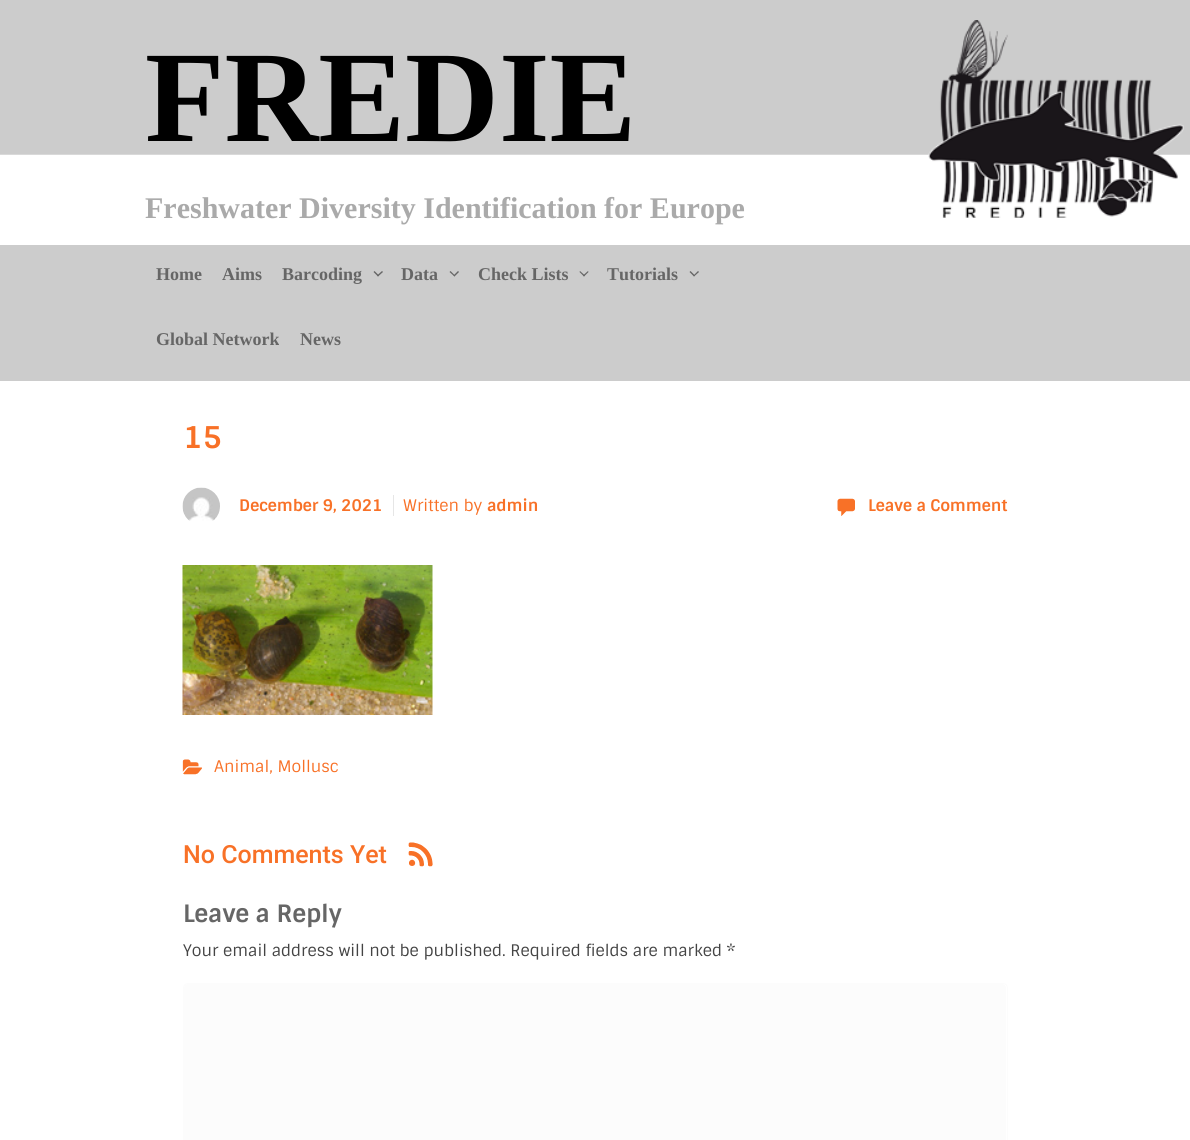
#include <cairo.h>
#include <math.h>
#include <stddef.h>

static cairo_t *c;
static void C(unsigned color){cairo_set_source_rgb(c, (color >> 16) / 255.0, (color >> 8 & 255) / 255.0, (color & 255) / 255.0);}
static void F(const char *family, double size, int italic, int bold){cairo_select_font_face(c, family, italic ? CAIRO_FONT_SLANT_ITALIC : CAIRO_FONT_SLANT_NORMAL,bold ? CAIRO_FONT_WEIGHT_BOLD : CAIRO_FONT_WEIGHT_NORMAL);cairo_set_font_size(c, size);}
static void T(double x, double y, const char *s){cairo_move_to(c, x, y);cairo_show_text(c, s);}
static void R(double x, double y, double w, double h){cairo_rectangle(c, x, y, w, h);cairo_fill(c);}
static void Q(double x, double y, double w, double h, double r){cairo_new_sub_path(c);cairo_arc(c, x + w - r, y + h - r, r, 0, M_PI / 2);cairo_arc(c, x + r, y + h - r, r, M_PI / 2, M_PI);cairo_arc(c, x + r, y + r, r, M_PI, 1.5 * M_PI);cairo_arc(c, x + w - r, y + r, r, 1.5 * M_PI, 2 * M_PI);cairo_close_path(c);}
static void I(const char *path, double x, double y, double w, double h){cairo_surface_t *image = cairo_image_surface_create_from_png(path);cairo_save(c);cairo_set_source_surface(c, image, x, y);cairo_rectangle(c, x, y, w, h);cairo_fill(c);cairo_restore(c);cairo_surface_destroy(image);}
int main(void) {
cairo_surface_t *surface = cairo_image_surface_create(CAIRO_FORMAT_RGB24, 1190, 1140);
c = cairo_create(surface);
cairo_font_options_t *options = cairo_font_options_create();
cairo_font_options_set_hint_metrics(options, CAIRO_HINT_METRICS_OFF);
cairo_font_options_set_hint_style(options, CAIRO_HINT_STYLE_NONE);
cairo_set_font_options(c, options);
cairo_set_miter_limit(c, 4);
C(0xcccccc);
cairo_paint(c);
I("1.png",0,20,1190,225);
F("Liberation Serif",130,0,1);
C(0x000000);
T(145,141,"FREDIE");
F("Liberation Serif",30,0,1);
C(0xaaaaaa);
T(145,218,"Freshwater Diversity Identification for Europe");
F("Liberation Serif",18,0,1);
C(0x666666);
T(156,280,"Home");
T(222,280,"Aims");
T(282,280,"Barcoding");
cairo_new_path(c);
cairo_move_to(c,382,271);
cairo_line_to(c,383,272);
cairo_line_to(c,378,276.5);
cairo_line_to(c,377,275.5);
cairo_close_path(c);
cairo_fill(c);
cairo_new_path(c);
cairo_move_to(c,374.5,271);
cairo_line_to(c,379,275.5);
cairo_line_to(c,378,276.5);
cairo_line_to(c,373.5,272);
cairo_close_path(c);
cairo_fill(c);
T(401,280,"Data");
cairo_new_path(c);
cairo_move_to(c,458,271);
cairo_line_to(c,459,272);
cairo_line_to(c,454.5,276.5);
cairo_line_to(c,453.5,275.5);
cairo_close_path(c);
cairo_fill(c);
cairo_new_path(c);
cairo_move_to(c,450.5,271);
cairo_line_to(c,455,275.5);
cairo_line_to(c,454.5,276.5);
cairo_line_to(c,449.5,272);
cairo_close_path(c);
cairo_fill(c);
T(478,280,"Check Lists");
cairo_new_path(c);
cairo_move_to(c,588,271);
cairo_line_to(c,588.5,272);
cairo_line_to(c,584,276.5);
cairo_line_to(c,583,275.5);
cairo_close_path(c);
cairo_fill(c);
cairo_new_path(c);
cairo_move_to(c,580,271);
cairo_line_to(c,585,275.5);
cairo_line_to(c,584,276.5);
cairo_line_to(c,579.5,272);
cairo_close_path(c);
cairo_fill(c);
T(607,280,"Tutorials");
cairo_new_path(c);
cairo_move_to(c,698,271);
cairo_line_to(c,699,272);
cairo_line_to(c,694,276.5);
cairo_line_to(c,693.5,275.5);
cairo_close_path(c);
cairo_fill(c);
cairo_new_path(c);
cairo_move_to(c,690.5,271);
cairo_line_to(c,695,275.5);
cairo_line_to(c,694,276.5);
cairo_line_to(c,689.5,272);
cairo_close_path(c);
cairo_fill(c);
T(156,345,"Global Network");
T(300,345,"News");
C(0xffffff);
R(0,381,1190,759);
F("Sintony",30,0,1);
C(0xf87127);
T(183,448,"15");
I("2.png",182,487,38,34);
F("Sintony",16,0,1);
T(239,511,"December 9, 2021");
C(0xe6e6e6);
R(393,495,1,21);
F("Sintony",16,0,0);
C(0xf87127);
T(403,511,"Written by");
F("Sintony",16,0,1);
T(487,511,"admin");
I("3.png",837,498,18,18);
T(868,511,"Leave a Comment");
I("4.png",182,565,251,150);
I("5.png",182,759,20,16);
F("Sintony",16,0,0);
T(214,772,"Animal, Mollusc");
F("Roboto Medium",25,0,0);
T(183,863,"No Comments Yet");
I("6.png",408,842,25,25);
F("Sintony",24,0,1);
C(0x666666);
T(183,922,"Leave a Reply");
F("Sintony",16,0,0);
C(0x444444);
T(183,956,"Your email address will not be published. Required fields are marked *");
C(0xfcfcfc);
Q(184,984,822,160,4);
cairo_fill(c);
Q(183.5,983.5,824,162,4.5);
cairo_set_line_width(c,1);
cairo_stroke(c);
cairo_surface_write_to_png(surface, "o.png");
cairo_font_options_destroy(options);
cairo_destroy(c);
cairo_surface_destroy(surface);
return 0;
}
